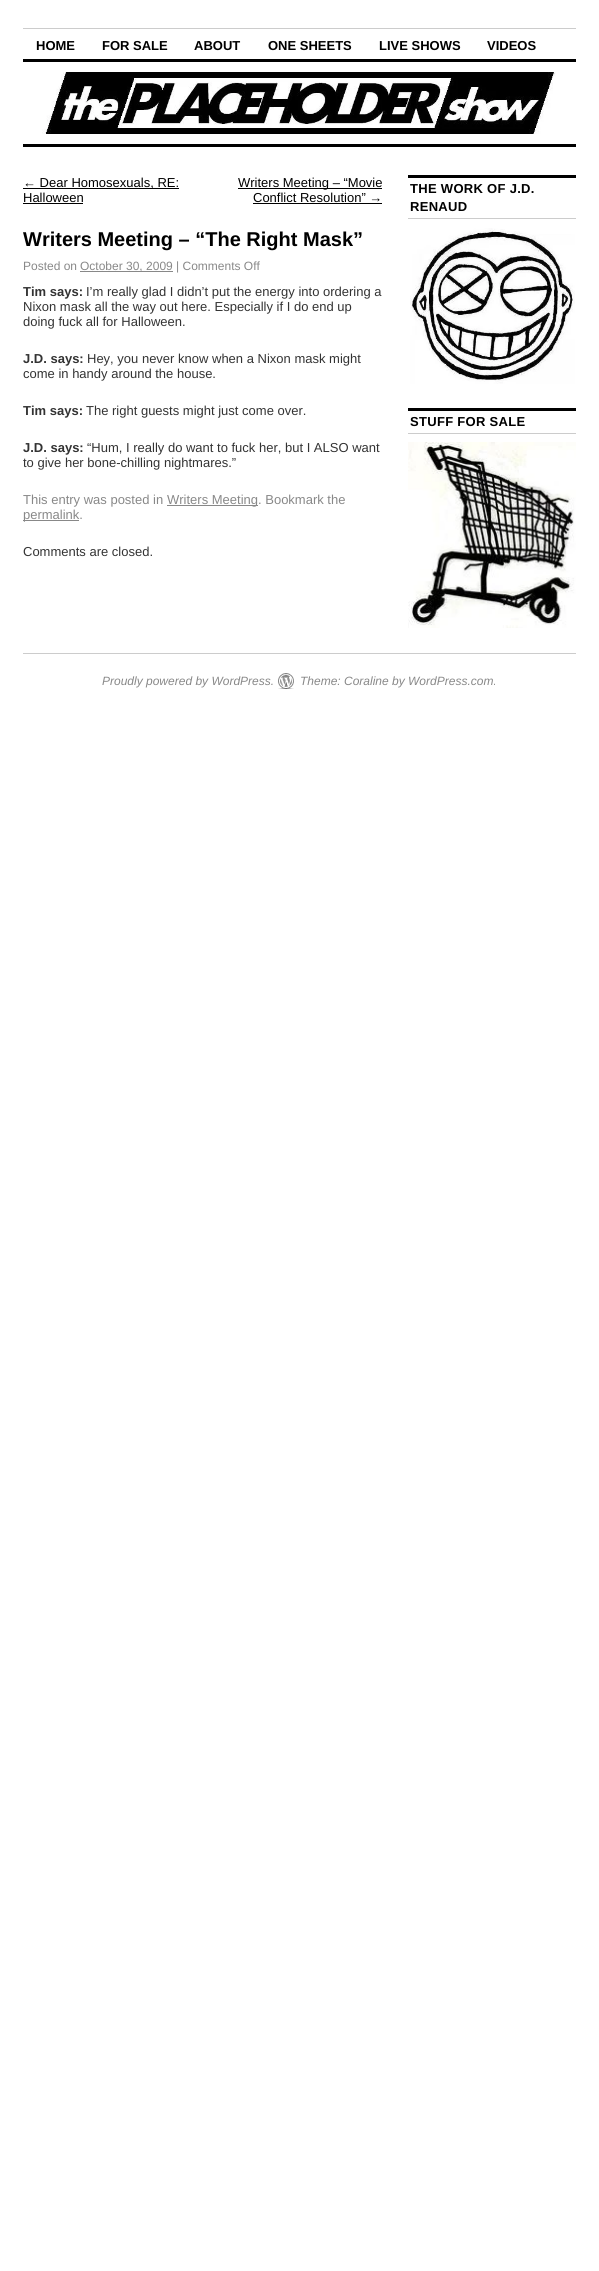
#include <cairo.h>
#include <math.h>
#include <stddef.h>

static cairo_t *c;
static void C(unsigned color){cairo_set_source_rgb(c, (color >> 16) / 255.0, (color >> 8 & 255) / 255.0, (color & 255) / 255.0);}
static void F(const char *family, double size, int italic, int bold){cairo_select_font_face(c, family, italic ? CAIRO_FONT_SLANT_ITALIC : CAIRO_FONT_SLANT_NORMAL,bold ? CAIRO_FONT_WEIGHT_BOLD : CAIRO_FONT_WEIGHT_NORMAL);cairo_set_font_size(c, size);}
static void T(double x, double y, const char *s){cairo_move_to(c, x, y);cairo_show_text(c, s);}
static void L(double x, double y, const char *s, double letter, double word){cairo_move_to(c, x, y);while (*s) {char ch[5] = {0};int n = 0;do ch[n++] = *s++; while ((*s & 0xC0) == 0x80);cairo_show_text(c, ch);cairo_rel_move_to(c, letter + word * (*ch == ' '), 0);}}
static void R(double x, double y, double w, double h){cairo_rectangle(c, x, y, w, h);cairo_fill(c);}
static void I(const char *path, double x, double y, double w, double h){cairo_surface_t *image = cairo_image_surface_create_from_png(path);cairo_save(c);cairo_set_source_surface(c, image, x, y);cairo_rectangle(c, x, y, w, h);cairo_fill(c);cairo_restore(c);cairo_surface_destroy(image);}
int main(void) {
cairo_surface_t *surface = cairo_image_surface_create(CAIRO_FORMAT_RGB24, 599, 2271);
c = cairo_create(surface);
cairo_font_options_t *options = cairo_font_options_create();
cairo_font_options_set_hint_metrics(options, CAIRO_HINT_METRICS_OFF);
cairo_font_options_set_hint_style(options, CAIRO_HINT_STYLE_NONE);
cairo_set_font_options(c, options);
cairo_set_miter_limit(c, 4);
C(0xffffff);
cairo_paint(c);
C(0xcccccc);
R(23,28,553,1);
F("Liberation Sans",13,0,1);
C(0x000000);
T(36,50,"HOME");
T(102,50,"FOR SALE");
T(194,50,"ABOUT");
T(268,50,"ONE SHEETS");
T(379,50,"LIVE SHOWS");
T(487,50,"VIDEOS");
R(23,59,553,3);
R(23,144,553,3);
I("1.png",42,72,514,62);
R(23,188,156,1);
F("Liberation Sans",13,0,0);
T(23,187,"← Dear Homosexuals, RE:");
T(23,202,"Halloween");
R(23,203,60,1);
R(238,188,144,1);
T(238,187,"Writers Meeting – “Movie");
T(253,202,"Conflict Resolution” →");
R(253,203,129,1);
F("Liberation Sans",20,0,1);
T(23,246,"Writers Meeting – “The Right Mask”");
F("Liberation Sans",12,0,0);
C(0x888888);
T(23,270,"Posted on");
R(80,271,93,1);
T(80,270,"October 30, 2009 | Comments Off");
F("Liberation Sans",13,0,1);
C(0x333333);
T(23,296,"Tim says:");
F("Liberation Sans",13,0,0);
T(86,296,"I’m really glad I didn’t put the energy into ordering a");
T(23,311,"Nixon mask all the way out here. Especially if I do end up");
T(23,326,"doing fuck all for Halloween.");
F("Liberation Sans",13,0,1);
T(23,363,"J.D. says:");
F("Liberation Sans",13,0,0);
T(87,363,"Hey, you never know when a Nixon mask might");
T(23,378,"come in handy around the house.");
F("Liberation Sans",13,0,1);
T(23,415,"Tim says:");
F("Liberation Sans",13,0,0);
T(86,415,"The right guests might just come over.");
F("Liberation Sans",13,0,1);
T(23,452,"J.D. says:");
F("Liberation Sans",13,0,0);
T(87,452,"“Hum, I really do want to fuck her, but I ALSO want");
T(23,467,"to give her bone-chilling nightmares.”");
C(0x888888);
T(23,504,"This entry was posted in");
R(167,505,91,1);
T(167,504,"Writers Meeting. Bookmark the");
R(23,520,56,1);
T(23,519,"permalink.");
C(0x333333);
T(23,556,"Comments are closed.");
C(0x000000);
R(408,175,168,3);
C(0xcccccc);
R(408,218,168,1);
F("Liberation Sans",13,0,1);
C(0x000000);
L(410,193,"THE WORK OF J.D.",.3,0);
L(410,211,"RENAUD",.3,0);
I("2.png",410,228,165,156);
R(408,408,168,3);
C(0xcccccc);
R(408,433,168,1);
C(0x000000);
L(410,426,"STUFF FOR SALE",.3,0);
I("3.png",408,442,168,186);
C(0xcccccc);
R(23,653,553,1);
I("4.png",278,673,16,16);
F("Liberation Sans",12,1,0);
C(0x888888);
T(102,685,"Proudly powered by WordPress.");
T(300,685,"Theme: Coraline by WordPress.com.");
cairo_surface_write_to_png(surface, "o.png");
cairo_font_options_destroy(options);
cairo_destroy(c);
cairo_surface_destroy(surface);
return 0;
}
